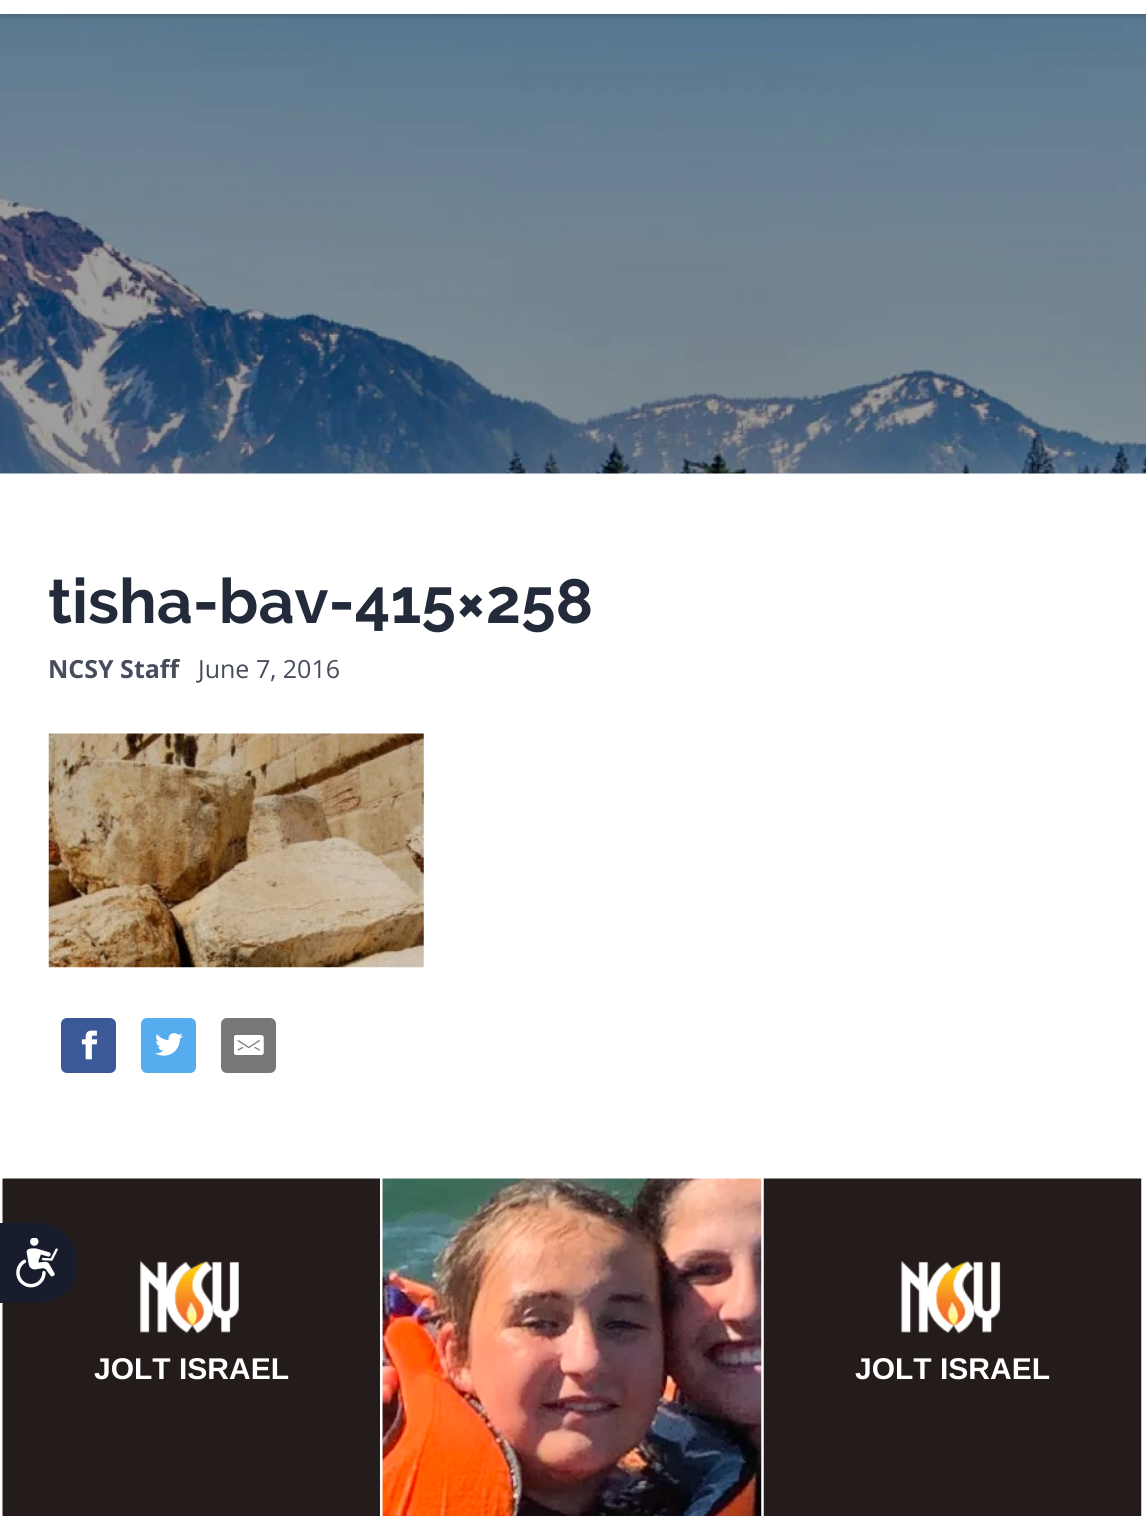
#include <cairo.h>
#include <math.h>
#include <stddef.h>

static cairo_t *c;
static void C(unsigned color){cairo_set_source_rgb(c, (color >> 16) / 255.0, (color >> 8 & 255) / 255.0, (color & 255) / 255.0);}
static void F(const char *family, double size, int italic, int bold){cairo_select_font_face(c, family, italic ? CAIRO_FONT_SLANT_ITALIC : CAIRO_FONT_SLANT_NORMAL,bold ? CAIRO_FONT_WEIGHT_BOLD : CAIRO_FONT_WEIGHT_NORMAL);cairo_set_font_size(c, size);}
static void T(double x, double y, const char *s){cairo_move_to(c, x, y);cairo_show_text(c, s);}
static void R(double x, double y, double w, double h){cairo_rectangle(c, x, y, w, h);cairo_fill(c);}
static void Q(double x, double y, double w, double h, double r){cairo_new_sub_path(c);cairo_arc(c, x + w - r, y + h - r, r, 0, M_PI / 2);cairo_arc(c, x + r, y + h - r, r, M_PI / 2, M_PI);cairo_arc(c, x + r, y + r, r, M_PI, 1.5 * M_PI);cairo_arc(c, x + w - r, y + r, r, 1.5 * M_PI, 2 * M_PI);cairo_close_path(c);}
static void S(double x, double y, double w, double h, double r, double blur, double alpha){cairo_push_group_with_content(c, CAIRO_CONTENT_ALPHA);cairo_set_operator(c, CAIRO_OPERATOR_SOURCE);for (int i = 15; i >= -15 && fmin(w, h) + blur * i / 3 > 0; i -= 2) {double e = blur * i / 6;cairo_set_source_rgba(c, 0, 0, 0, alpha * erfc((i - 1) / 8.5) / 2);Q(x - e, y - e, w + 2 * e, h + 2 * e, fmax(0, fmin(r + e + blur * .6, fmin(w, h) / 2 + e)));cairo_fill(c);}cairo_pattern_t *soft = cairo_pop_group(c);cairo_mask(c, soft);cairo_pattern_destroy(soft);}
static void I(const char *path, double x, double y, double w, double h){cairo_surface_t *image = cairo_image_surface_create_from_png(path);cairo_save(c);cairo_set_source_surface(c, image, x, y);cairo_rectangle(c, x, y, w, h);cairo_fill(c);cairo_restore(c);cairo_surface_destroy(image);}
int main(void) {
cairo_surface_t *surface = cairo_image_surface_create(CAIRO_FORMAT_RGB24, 1146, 1527);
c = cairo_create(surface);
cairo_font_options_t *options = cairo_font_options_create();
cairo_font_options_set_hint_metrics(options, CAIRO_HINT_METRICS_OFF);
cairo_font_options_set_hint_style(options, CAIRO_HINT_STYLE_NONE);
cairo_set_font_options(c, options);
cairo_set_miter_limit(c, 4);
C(0xffffff);
cairo_paint(c);
I("2.png",0,14,1146,460);
C(0x000000);
S(0,-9,1146,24,0,3,.25);
C(0xffffff);
R(0,0,1146,14);
I("7.png",2,1178,378,338);
C(0x171d2d);
cairo_new_path(c);
cairo_move_to(c,0,1223);
cairo_line_to(c,38,1223);
cairo_curve_to(c,60,1223,78,1241,78,1263);
cairo_curve_to(c,78,1285,60,1303,38,1303);
cairo_line_to(c,0,1303);
cairo_close_path(c);
cairo_fill(c);
I("1.png",16,1238,42,50);
F("Raleway",62.5,0,1);
C(0x232a39);
T(48,623,"tisha-bav-415×258");
F("Open Sans",25,0,1);
C(0x474d5c);
T(48,678,"NCSY Staff");
F("Open Sans",25,0,0);
T(198,678,"June 7, 2016");
I("3.png",48,733,376,235);
C(0x3b5998);
Q(61,1018,55,55,6);
cairo_fill(c);
I("4.png",81,1030,17,30);
C(0x55acee);
Q(141,1018,55,55,6);
cairo_fill(c);
I("5.png",155,1033,28,23);
C(0x777777);
Q(221,1018,55,55,6);
cairo_fill(c);
I("6.png",234,1035,30,20);
F("Liberation Sans",30,0,1);
C(0xffffff);
T(94,1379,"JOLT ISRAEL");
I("8.png",382,1178,380,338);
I("9.png",763,1178,379,338);
T(855,1379,"JOLT ISRAEL");
cairo_surface_write_to_png(surface, "o.png");
cairo_font_options_destroy(options);
cairo_destroy(c);
cairo_surface_destroy(surface);
return 0;
}
